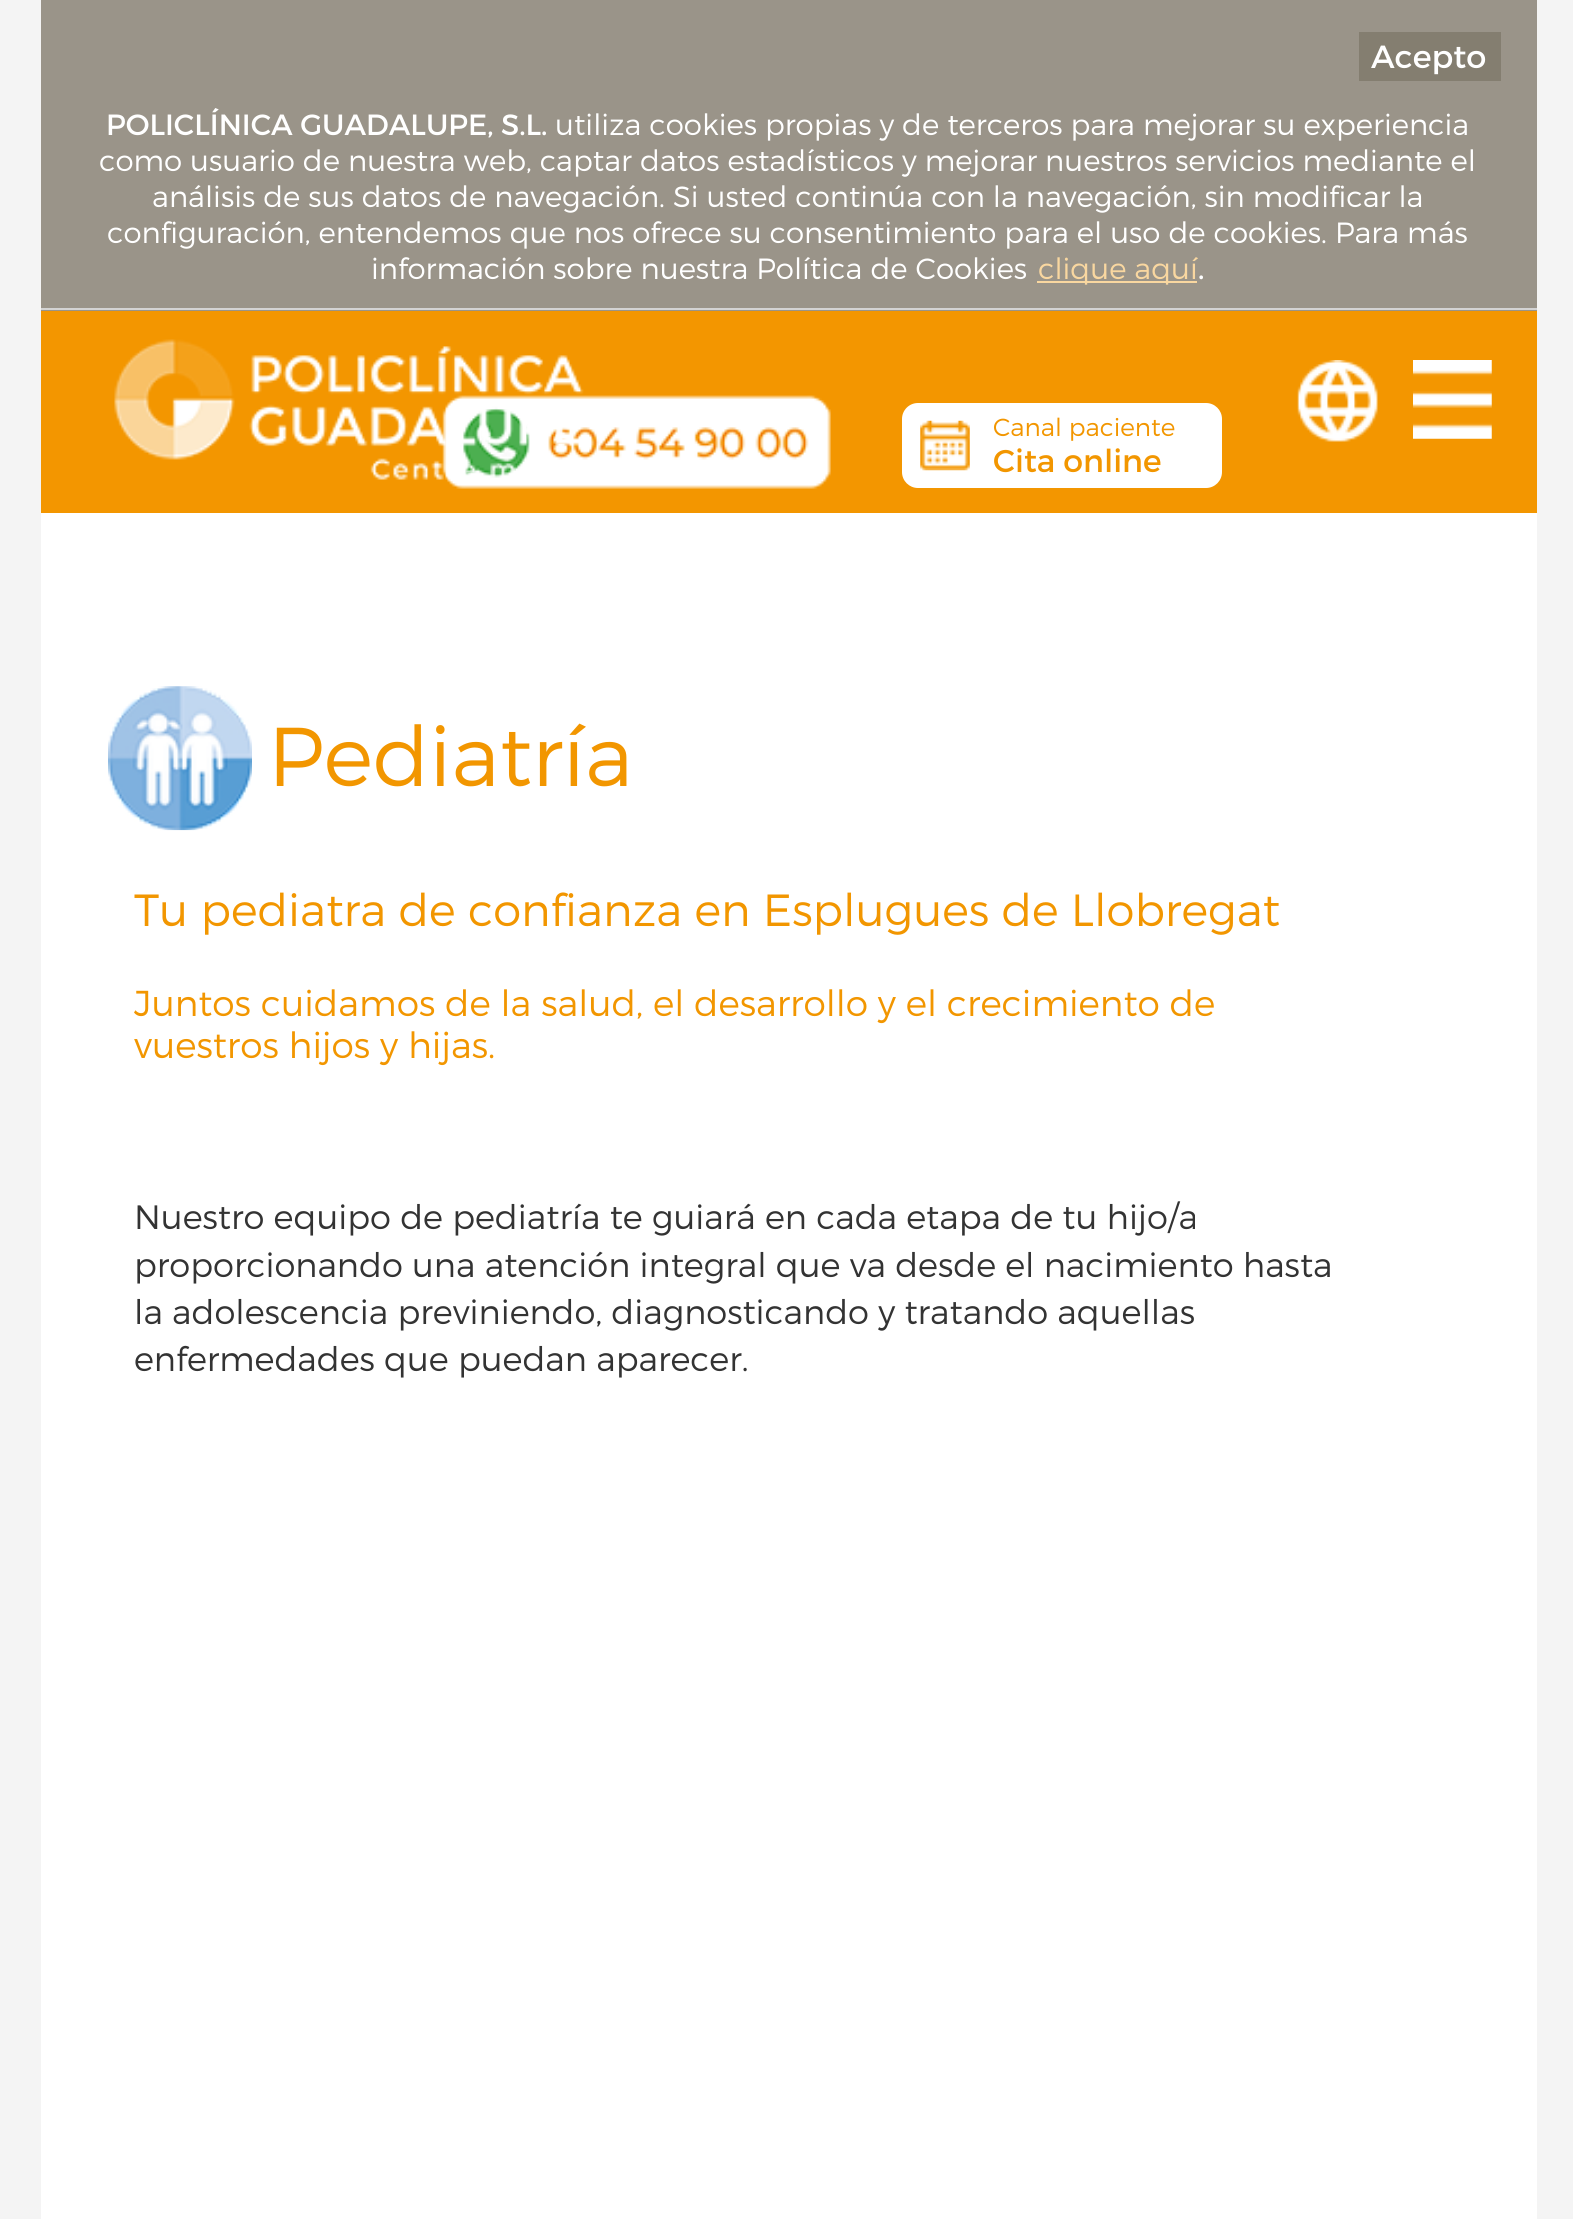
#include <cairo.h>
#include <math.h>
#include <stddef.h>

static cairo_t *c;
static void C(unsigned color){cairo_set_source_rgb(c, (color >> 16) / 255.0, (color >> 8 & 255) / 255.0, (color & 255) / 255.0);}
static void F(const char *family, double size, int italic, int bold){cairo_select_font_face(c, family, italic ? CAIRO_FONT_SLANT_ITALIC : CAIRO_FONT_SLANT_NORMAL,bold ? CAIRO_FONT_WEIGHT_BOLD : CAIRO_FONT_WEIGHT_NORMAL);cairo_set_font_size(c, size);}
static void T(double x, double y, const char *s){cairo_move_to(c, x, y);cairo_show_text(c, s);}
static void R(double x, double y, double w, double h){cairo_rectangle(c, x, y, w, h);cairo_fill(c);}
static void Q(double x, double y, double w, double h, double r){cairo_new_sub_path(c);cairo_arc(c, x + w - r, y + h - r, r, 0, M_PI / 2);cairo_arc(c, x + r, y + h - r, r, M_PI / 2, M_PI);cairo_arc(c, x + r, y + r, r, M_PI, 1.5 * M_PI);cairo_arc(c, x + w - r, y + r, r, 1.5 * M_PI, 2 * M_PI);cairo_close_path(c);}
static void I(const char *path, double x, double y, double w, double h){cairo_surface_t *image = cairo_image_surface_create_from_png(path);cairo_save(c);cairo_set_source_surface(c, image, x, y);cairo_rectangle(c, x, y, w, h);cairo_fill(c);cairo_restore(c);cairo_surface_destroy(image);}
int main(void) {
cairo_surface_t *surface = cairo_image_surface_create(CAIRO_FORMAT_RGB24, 1573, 2219);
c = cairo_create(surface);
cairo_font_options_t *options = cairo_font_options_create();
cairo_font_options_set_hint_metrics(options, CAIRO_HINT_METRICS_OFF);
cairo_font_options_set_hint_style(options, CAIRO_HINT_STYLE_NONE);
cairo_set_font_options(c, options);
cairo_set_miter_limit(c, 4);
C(0xf4f4f4);
cairo_paint(c);
C(0xffffff);
R(41,513,1496,1706);
C(0x9a9489);
R(41,0,1496,311);
C(0xd3d3d3);
R(41,308,1496,2);
C(0x847e70);
R(1359,32,142,49);
F("Montserrat",32,0,0);
C(0xffffff);
T(1371,68,"Acepto");
F("Montserrat",29.25,0,0);
T(106,135,"POLICLÍNICA GUADALUPE, S.L.");
F("Montserrat Light",29.25,0,0);
T(555,135,"utiliza cookies propias y de terceros para mejorar su experiencia");
T(99,171,"como usuario de nuestra web, captar datos estadísticos y mejorar nuestros servicios mediante el");
T(152,207,"análisis de sus datos de navegación. Si usted continúa con la navegación, sin modificar la");
T(107,243,"configuración, entendemos que nos ofrece su consentimiento para el uso de cookies. Para más");
T(371,279,"información sobre nuestra Política de Cookies");
C(0xf9d7a0);
R(1037,281,160,2);
T(1038,279,"clique aquí");
F("Montserrat",29.25,0,0);
C(0xffffff);
T(1198,279,".");
C(0xf39600);
R(41,311,1496,202);
I("4.png",442,395,389,94);
I("1.png",114,339,470,141);
I("2.png",1297,360,81,82);
I("3.png",1413,360,79,79);
C(0xffffff);
Q(902,403,320,85,16);
cairo_fill(c);
I("5.png",920,420,50,51);
F("Montserrat Light",24.75,0,0);
C(0xf29600);
T(993,436,"Canal paciente");
F("Montserrat",31.5,0,0);
T(993,472,"Cita online");
I("6.png",108,686,144,145);
F("Montserrat Light",83.25,0,0);
T(268,786,"Pediatría");
F("Montserrat Light",45,0,0);
T(134,926,"Tu pediatra de confianza en Esplugues de Llobregat");
F("Montserrat Light",36,0,0);
T(134,1016,"Juntos cuidamos de la salud, el desarrollo y el crecimiento de");
T(134,1058,"vuestros hijos y hijas.");
F("Montserrat Light",33.75,0,0);
C(0x333333);
T(134,1229,"Nuestro equipo de pediatría te guiará en cada etapa de tu hijo/a");
T(134,1277,"proporcionando una atención integral que va desde el nacimiento hasta");
T(134,1324,"la adolescencia previniendo, diagnosticando y tratando aquellas");
T(134,1371,"enfermedades que puedan aparecer.");
cairo_surface_write_to_png(surface, "o.png");
cairo_font_options_destroy(options);
cairo_destroy(c);
cairo_surface_destroy(surface);
return 0;
}
